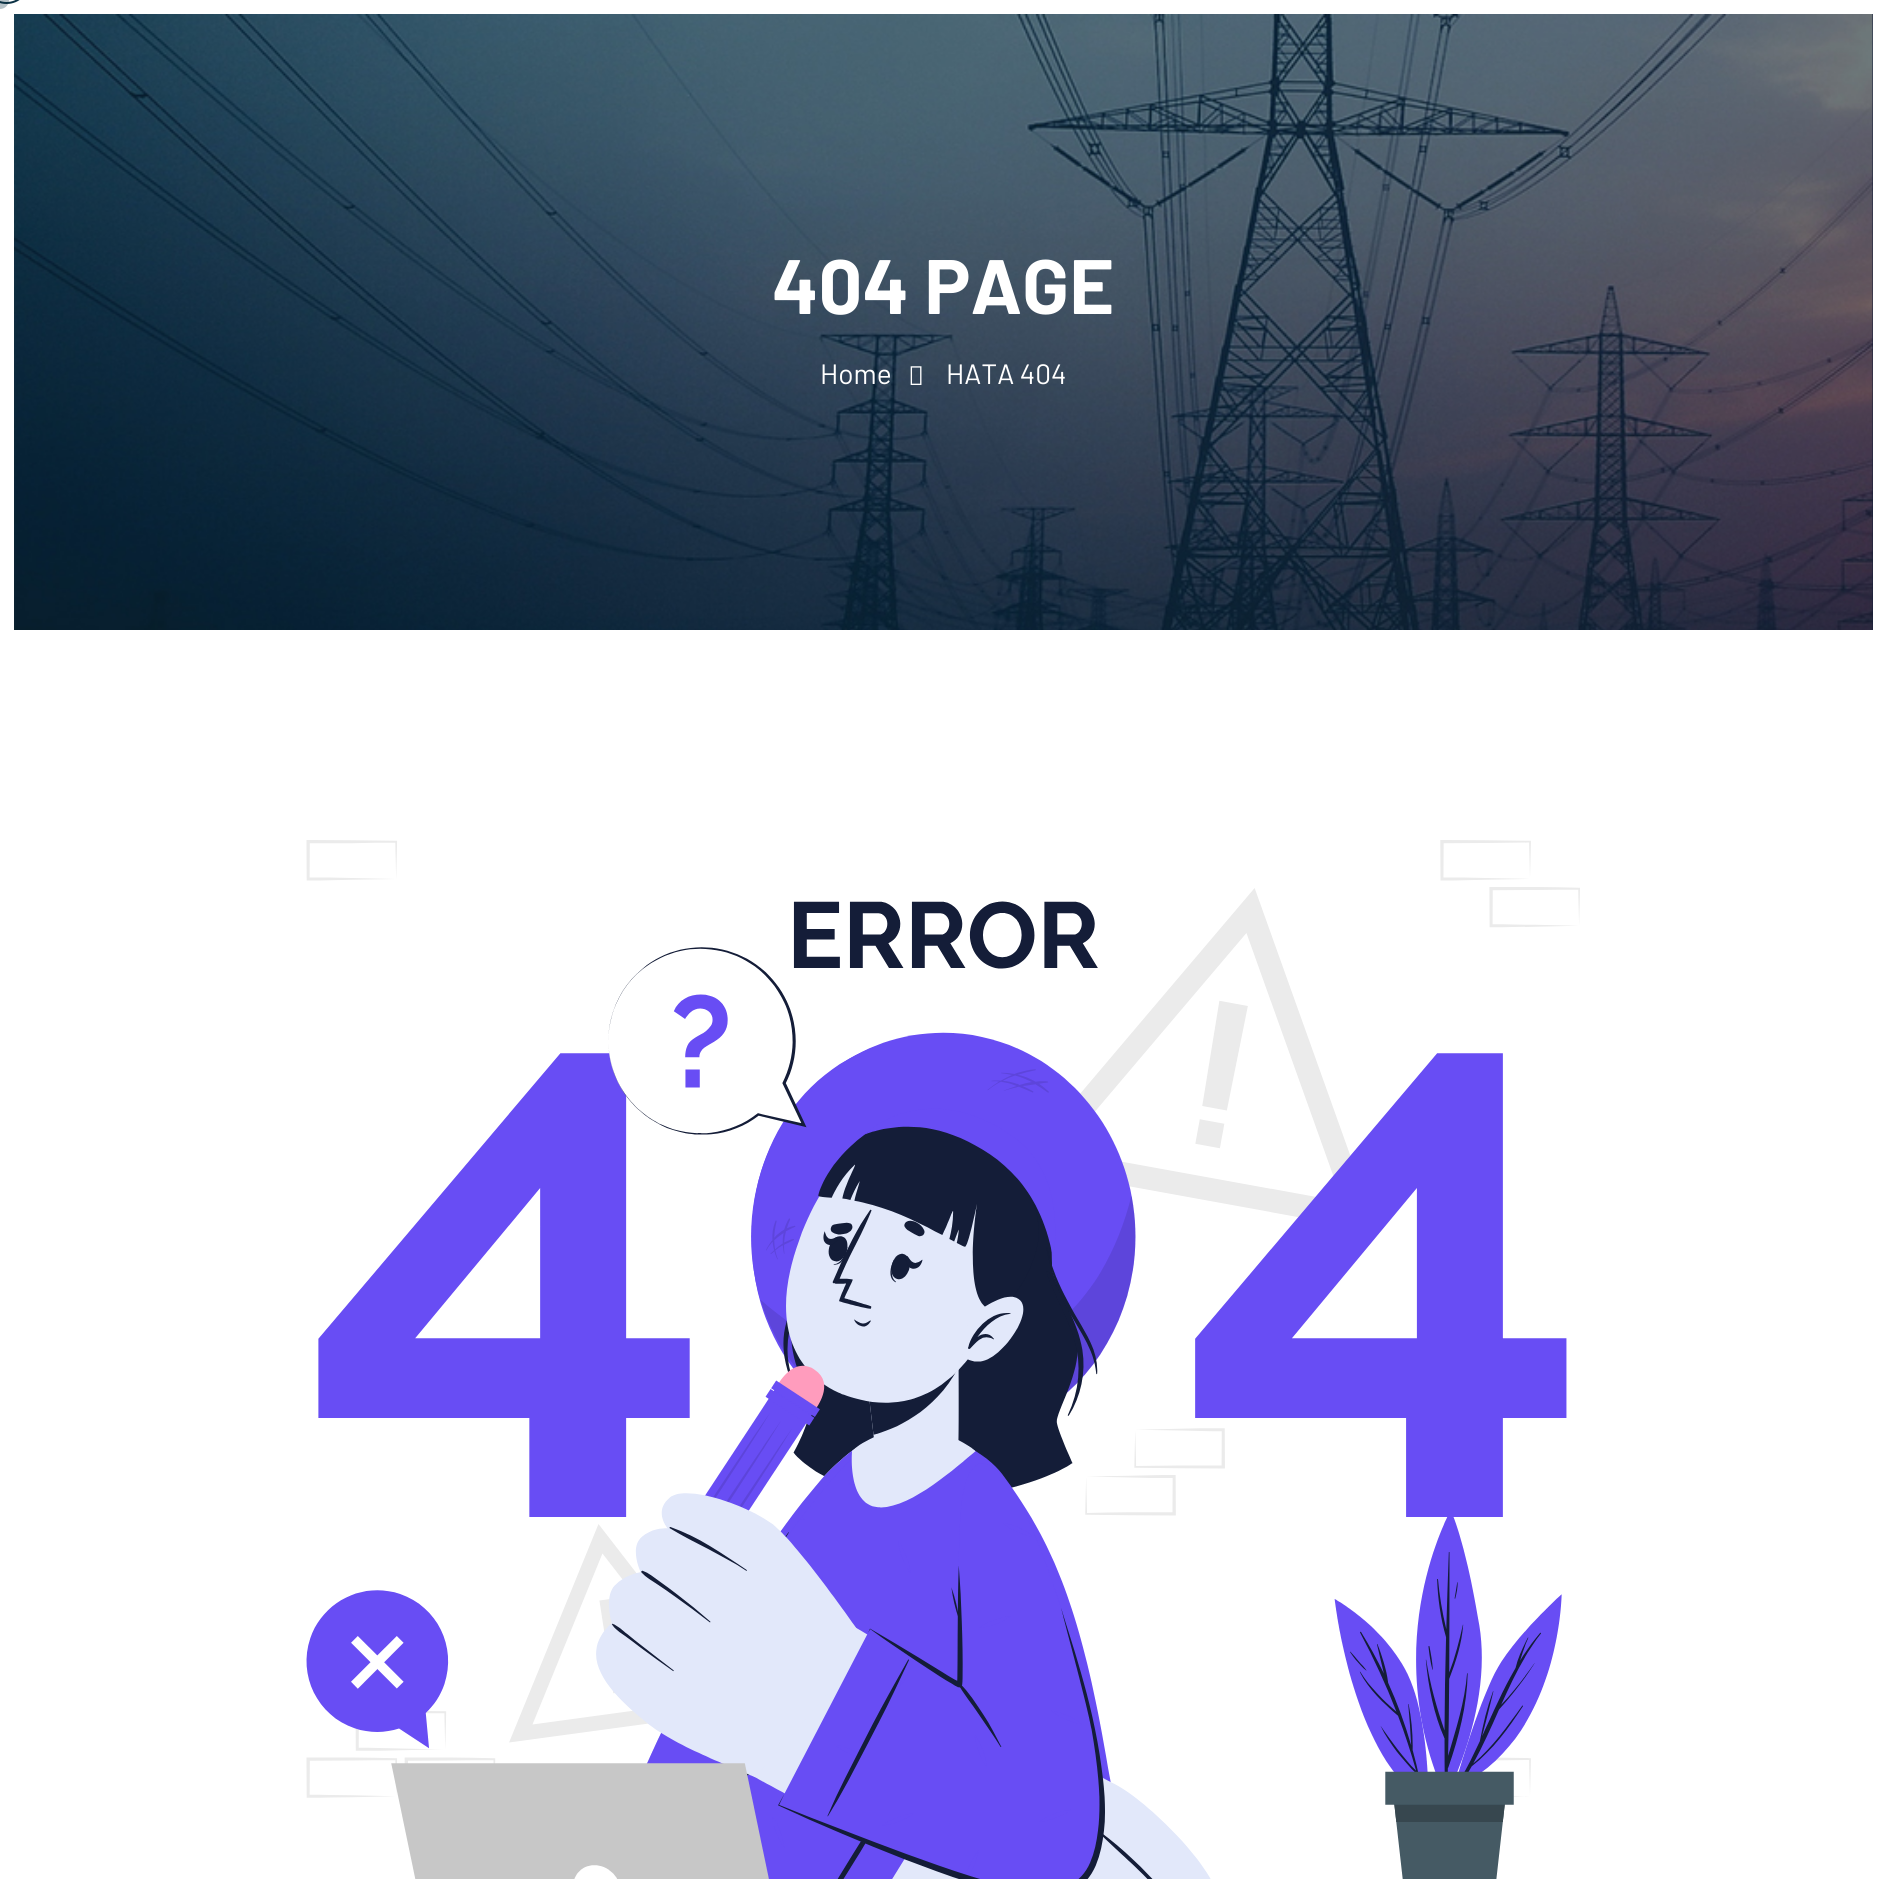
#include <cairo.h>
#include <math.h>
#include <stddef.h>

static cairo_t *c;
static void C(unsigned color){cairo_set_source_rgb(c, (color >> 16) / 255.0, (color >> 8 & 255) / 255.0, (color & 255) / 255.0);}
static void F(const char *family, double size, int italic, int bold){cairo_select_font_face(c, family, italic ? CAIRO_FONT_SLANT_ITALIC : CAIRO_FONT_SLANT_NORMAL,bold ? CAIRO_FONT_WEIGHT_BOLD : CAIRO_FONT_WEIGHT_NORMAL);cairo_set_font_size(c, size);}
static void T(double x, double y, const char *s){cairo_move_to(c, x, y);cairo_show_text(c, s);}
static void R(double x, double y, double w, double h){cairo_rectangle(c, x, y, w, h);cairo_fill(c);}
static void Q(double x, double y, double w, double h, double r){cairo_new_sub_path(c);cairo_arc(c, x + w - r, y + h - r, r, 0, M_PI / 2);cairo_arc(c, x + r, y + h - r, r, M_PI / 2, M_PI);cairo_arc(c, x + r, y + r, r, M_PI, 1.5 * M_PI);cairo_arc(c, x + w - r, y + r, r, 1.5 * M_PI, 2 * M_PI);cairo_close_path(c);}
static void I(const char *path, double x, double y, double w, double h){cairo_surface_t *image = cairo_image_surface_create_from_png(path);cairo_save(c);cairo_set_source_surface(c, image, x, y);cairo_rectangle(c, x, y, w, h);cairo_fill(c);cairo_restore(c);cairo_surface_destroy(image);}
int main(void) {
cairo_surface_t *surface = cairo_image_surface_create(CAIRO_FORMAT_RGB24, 1885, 1879);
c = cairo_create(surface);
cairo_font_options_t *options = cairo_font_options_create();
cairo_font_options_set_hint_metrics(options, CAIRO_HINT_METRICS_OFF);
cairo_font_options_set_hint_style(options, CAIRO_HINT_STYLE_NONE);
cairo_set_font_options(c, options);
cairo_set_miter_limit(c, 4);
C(0xffffff);
cairo_paint(c);
C(0xb6c1c7);
cairo_arc(c,0,0,9,0,2 * M_PI);
cairo_fill(c);
Q(-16,-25,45,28,22.5);
C(0x0b3144);
cairo_stroke(c);
C(0x141d38);
R(1872,14,1,616);
I("1.png",14,14,1859,616);
F("Barlow",77,0,1);
C(0xffffff);
T(772,314,"404 PAGE");
F("Barlow",28,0,0);
T(820,384,"Home");
I("2.png",910,366,12,19);
T(946,384,"HATA 404");
I("3.png",306,840,1274,1039);
cairo_surface_write_to_png(surface, "o.png");
cairo_font_options_destroy(options);
cairo_destroy(c);
cairo_surface_destroy(surface);
return 0;
}
